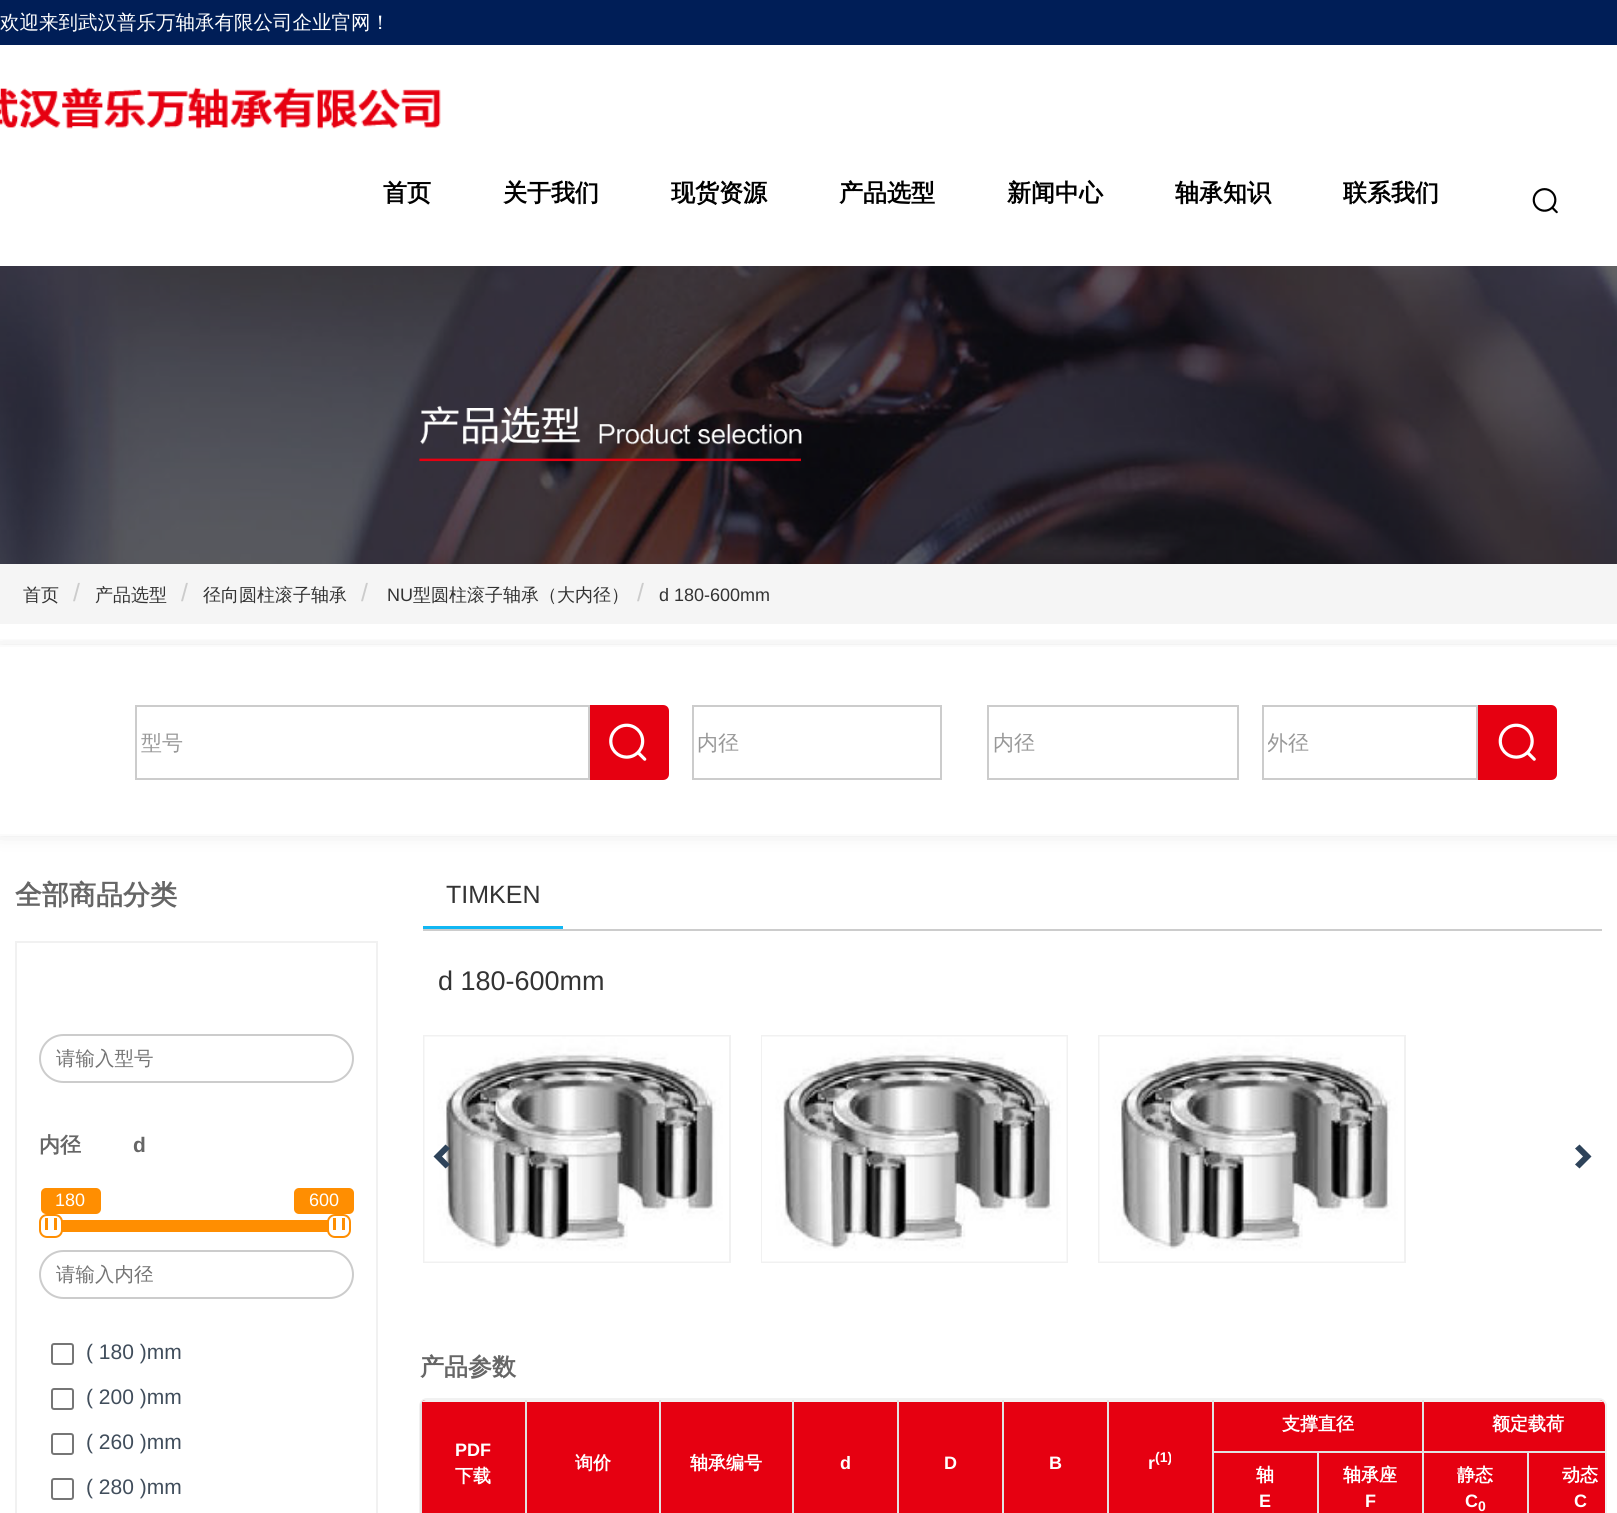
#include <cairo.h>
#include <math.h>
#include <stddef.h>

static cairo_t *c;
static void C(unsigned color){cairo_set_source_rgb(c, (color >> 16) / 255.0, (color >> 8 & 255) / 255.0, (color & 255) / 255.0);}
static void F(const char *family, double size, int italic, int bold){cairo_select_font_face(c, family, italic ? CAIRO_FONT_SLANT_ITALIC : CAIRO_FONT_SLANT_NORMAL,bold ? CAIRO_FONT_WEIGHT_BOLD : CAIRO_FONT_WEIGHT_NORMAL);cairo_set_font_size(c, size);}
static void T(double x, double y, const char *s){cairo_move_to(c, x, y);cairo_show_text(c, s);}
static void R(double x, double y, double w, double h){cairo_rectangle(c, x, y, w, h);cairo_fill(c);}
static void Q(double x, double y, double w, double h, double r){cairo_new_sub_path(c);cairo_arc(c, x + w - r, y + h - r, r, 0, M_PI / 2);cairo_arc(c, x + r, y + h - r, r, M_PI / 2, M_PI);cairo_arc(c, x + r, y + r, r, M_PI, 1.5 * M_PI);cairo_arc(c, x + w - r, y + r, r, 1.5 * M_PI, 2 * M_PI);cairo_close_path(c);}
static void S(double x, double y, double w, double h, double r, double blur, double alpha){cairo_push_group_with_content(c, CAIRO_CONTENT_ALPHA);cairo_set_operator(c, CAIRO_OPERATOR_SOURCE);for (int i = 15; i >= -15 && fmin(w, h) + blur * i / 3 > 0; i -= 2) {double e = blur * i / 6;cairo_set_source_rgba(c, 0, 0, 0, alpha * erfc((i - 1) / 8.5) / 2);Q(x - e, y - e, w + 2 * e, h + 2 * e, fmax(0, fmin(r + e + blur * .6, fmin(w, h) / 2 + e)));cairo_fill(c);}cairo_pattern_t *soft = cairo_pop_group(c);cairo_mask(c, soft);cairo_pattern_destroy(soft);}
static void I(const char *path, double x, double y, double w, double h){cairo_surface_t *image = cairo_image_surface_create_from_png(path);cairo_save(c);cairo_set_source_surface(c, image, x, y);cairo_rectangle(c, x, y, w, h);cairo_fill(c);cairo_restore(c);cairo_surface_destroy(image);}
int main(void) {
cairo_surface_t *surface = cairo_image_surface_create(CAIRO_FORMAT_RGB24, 1617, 1513);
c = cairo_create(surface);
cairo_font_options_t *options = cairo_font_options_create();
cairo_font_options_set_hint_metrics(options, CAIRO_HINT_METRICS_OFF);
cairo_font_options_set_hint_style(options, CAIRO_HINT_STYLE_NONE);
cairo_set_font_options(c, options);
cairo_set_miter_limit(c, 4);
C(0xffffff);
cairo_paint(c);
C(0x001e57);
R(0,0,1617,45);
F("WenQuanYi Zen Hei Medium",19.5,0,0);
C(0xffffff);
T(0,29,"欢迎来到武汉普乐万轴承有限公司企业官网！");
I("1.png",0,87,441,42);
F("WenQuanYi Zen Hei",24,0,1);
C(0x000000);
T(383,201,"首页");
T(503,201,"关于我们");
T(671,201,"现货资源");
T(839,201,"产品选型");
T(1007,201,"新闻中心");
T(1175,201,"轴承知识");
T(1343,201,"联系我们");
I("2.png",1532,188,26,26);
I("3.png",0,266,1617,298);
C(0xf5f5f5);
R(0,564,1617,60);
F("WenQuanYi Zen Hei Medium",18,0,0);
C(0x333333);
T(23,601,"首页");
F("Liberation Sans",25,0,0);
C(0xcccccc);
T(73,601,"/");
F("WenQuanYi Zen Hei Medium",18,0,0);
C(0x333333);
T(95,601,"产品选型");
F("Liberation Sans",25,0,0);
C(0xcccccc);
T(181,601,"/");
F("WenQuanYi Zen Hei Medium",18,0,0);
C(0x333333);
T(203,601,"径向圆柱滚子轴承");
F("Liberation Sans",25,0,0);
C(0xcccccc);
T(361,601,"/");
F("Liberation Sans",18,0,0);
C(0x333333);
T(387,601,"NU");
F("WenQuanYi Zen Hei Medium",18,0,0);
T(413,601,"型圆柱滚子轴承（大内径）");
F("Liberation Sans",25,0,0);
C(0xcccccc);
T(637,601,"/");
F("Liberation Sans",18,0,0);
C(0x333333);
T(659,601,"d 180-600mm");
cairo_save(c);
cairo_rectangle(c,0,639,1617,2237);
cairo_clip(c);
cairo_set_fill_rule(c,CAIRO_FILL_RULE_EVEN_ODD);
cairo_new_path(c);
cairo_move_to(c,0,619);
cairo_line_to(c,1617,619);
cairo_line_to(c,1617,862);
cairo_line_to(c,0,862);
cairo_close_path(c);
cairo_move_to(c,-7,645);
cairo_line_to(c,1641,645);
cairo_line_to(c,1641,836);
cairo_line_to(c,-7,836);
cairo_close_path(c);
cairo_clip(c);
C(0x000000);
S(0,653,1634,175,0,11,.2);
cairo_restore(c);
cairo_rectangle(c,-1,646,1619,189);
cairo_set_source_rgba(c,0.945,0.945,0.945,0.26);
cairo_stroke(c);
cairo_rectangle(c,136,706,453,73);
C(0xcccccc);
cairo_stroke(c);
F("WenQuanYi Zen Hei Medium",21,0,0);
C(0x999999);
T(141,750,"型号");
C(0xe60011);
cairo_new_path(c);
cairo_move_to(c,590,705);
cairo_line_to(c,663,705);
cairo_curve_to(c,666.5,705,669,707.5,669,711);
cairo_line_to(c,669,774);
cairo_curve_to(c,669,777.5,666.5,780,663,780);
cairo_line_to(c,590,780);
cairo_close_path(c);
cairo_fill(c);
I("4.png",609,723,38,38);
cairo_rectangle(c,693,706,248,73);
C(0xcccccc);
cairo_stroke(c);
C(0x999999);
T(697,750,"内径");
cairo_rectangle(c,988,706,250,73);
C(0xcccccc);
cairo_stroke(c);
C(0x999999);
T(993,750,"内径");
cairo_rectangle(c,1263,706,214,73);
C(0xcccccc);
cairo_stroke(c);
cairo_save(c);
cairo_rectangle(c,1268,731,204,27);
cairo_clip(c);
C(0x999999);
T(1267,750,"外径");
cairo_restore(c);
C(0xe60011);
cairo_new_path(c);
cairo_move_to(c,1478,705);
cairo_line_to(c,1551,705);
cairo_curve_to(c,1554.5,705,1557,707.5,1557,711);
cairo_line_to(c,1557,774);
cairo_curve_to(c,1557,777.5,1554.5,780,1551,780);
cairo_line_to(c,1478,780);
cairo_close_path(c);
cairo_fill(c);
I("5.png",1498,723,38,38);
F("WenQuanYi Zen Hei",27,0,1);
C(0x666666);
T(15,904,"全部商品分类");
cairo_rectangle(c,16,942,361,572);
C(0xf1f1f1);
cairo_stroke(c);
Q(40,1035,313,47,23.5);
C(0xcccccc);
cairo_stroke(c);
F("WenQuanYi Zen Hei Medium",19.5,0,0);
C(0x757575);
T(56,1065,"请输入型号");
F("WenQuanYi Zen Hei",21,0,1);
C(0x666666);
T(39,1152,"内径");
F("Liberation Sans",21,0,1);
T(133,1152,"d");
C(0xff8e01);
R(62,1220,266,12);
C(0xffffff);
Q(40,1215,22,22,7);
cairo_fill_preserve(c);
C(0xff8e01);
cairo_stroke(c);
Q(41,1188,60,26,5);
cairo_fill(c);
F("Liberation Sans",18,0,0);
C(0xffffff);
T(55,1206,"180");
C(0xff8e01);
R(45,1218,3,12);
R(54,1218,3,12);
C(0xffffff);
Q(328,1215,22,22,7);
cairo_fill_preserve(c);
C(0xff8e01);
cairo_stroke(c);
Q(294,1188,60,26,5);
cairo_fill(c);
C(0xffffff);
T(309,1206,"600");
C(0xff8e01);
R(333,1218,3,12);
R(342,1218,3,12);
Q(40,1251,313,47,23.5);
C(0xcccccc);
cairo_stroke(c);
F("WenQuanYi Zen Hei Medium",19.5,0,0);
C(0x757575);
T(56,1281,"请输入内径");
Q(52,1344,21,20,2);
C(0x767676);
cairo_stroke(c);
F("Liberation Sans",21,0,0);
C(0x404d5b);
T(86,1359,"( 180 )mm");
Q(52,1389,21,20,2);
C(0x767676);
cairo_stroke(c);
C(0x404d5b);
T(86,1404,"( 200 )mm");
Q(52,1434,21,20,2);
C(0x767676);
cairo_stroke(c);
C(0x404d5b);
T(86,1449,"( 260 )mm");
Q(52,1479,21,20,2);
C(0x767676);
cairo_stroke(c);
C(0x404d5b);
T(86,1494,"( 280 )mm");
C(0xcccccc);
R(423,929,1179,2);
C(0x11b7f3);
R(423,926,140,3);
F("Liberation Sans",25,0,0);
C(0x333333);
T(446,903,"TIMKEN");
F("Liberation Sans",27,0,0);
T(438,990,"d 180-600mm");
cairo_rectangle(c,424,1036,306,226);
C(0xf1f1f1);
cairo_stroke(c);
I("6.png",424,1036,305,226);
cairo_rectangle(c,762,1036,305,226);
cairo_stroke(c);
I("7.png",762,1036,305,226);
cairo_rectangle(c,1099,1036,306,226);
cairo_stroke(c);
I("6.png",1099,1036,305,226);
C(0x2e435a);
cairo_new_path(c);
cairo_move_to(c,445.5,1144.5);
cairo_line_to(c,450,1148.5);
cairo_line_to(c,442,1156.5);
cairo_line_to(c,450,1164.5);
cairo_line_to(c,445.5,1168.5);
cairo_line_to(c,433.5,1156.5);
cairo_close_path(c);
cairo_fill(c);
cairo_new_path(c);
cairo_move_to(c,1579.5,1168.5);
cairo_line_to(c,1575,1164.5);
cairo_line_to(c,1583,1156.5);
cairo_line_to(c,1575,1148.5);
cairo_line_to(c,1579.5,1144.5);
cairo_line_to(c,1591.5,1156.5);
cairo_close_path(c);
cairo_fill(c);
F("WenQuanYi Zen Hei",24,0,1);
C(0x666666);
T(420,1375,"产品参数");
Q(420,1399,1186,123,7);
C(0xf1f1f1);
cairo_stroke(c);
cairo_save(c);
Q(420,1400,1185,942,6);
cairo_clip(c);
C(0xe60011);
cairo_new_path(c);
cairo_move_to(c,422,1400);
cairo_line_to(c,1599,1400);
cairo_curve_to(c,1602.5,1400,1605,1402.5,1605,1406);
cairo_line_to(c,1605,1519);
cairo_line_to(c,422,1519);
cairo_close_path(c);
cairo_fill(c);
C(0xf1f1f1);
R(1422,1400,183,2);
cairo_restore(c);
R(525,1400,899,2);
C(0xe2e2e2);
R(1422,1451,2,62);
R(1527,1451,2,62);
R(1422,1451,183,2);
R(1422,1400,2,52);
R(1317,1451,2,62);
R(1212,1451,212,2);
F("WenQuanYi Zen Hei",18,0,1);
C(0xffffff);
T(1282,1430,"支撑直径");
T(1492,1430,"额定载荷");
cairo_save(c);
Q(420,1400,1185,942,6);
cairo_clip(c);
C(0xf1f1f1);
R(420,1400,107,2);
cairo_restore(c);
C(0xe2e2e2);
R(525,1400,2,113);
cairo_save(c);
Q(420,1400,1185,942,6);
cairo_clip(c);
R(420,1400,2,113);
cairo_restore(c);
F("Liberation Sans",18,0,1);
C(0xffffff);
T(455,1456,"PDF");
F("WenQuanYi Zen Hei",18,0,1);
T(455,1482,"下载");
C(0xe2e2e2);
R(659,1400,2,113);
C(0xffffff);
T(575,1469,"询价");
C(0xe2e2e2);
R(792,1400,2,113);
C(0xffffff);
T(690,1469,"轴承编号");
C(0xe2e2e2);
R(897,1400,2,113);
F("Liberation Sans",18,0,1);
C(0xffffff);
T(840,1469,"d");
C(0xe2e2e2);
R(1002,1400,2,113);
C(0xffffff);
T(944,1469,"D");
C(0xe2e2e2);
R(1107,1400,2,113);
C(0xffffff);
T(1049,1469,"B");
C(0xe2e2e2);
R(1212,1400,2,113);
C(0xffffff);
T(1148,1469,"r");
F("Liberation Sans",14,0,1);
T(1155,1462,"(1)");
F("WenQuanYi Zen Hei",18,0,1);
T(1256,1481,"轴");
F("Liberation Sans",18,0,1);
T(1259,1507,"E");
F("WenQuanYi Zen Hei",18,0,1);
T(1343,1481,"轴承座");
F("Liberation Sans",18,0,1);
T(1365,1507,"F");
F("WenQuanYi Zen Hei",18,0,1);
T(1457,1481,"静态");
F("Liberation Sans",18,0,1);
T(1465,1507,"C");
F("Liberation Sans",14,0,1);
T(1478,1511,"0");
F("WenQuanYi Zen Hei",18,0,1);
T(1562,1481,"动态");
F("Liberation Sans",18,0,1);
T(1574,1507,"C");
cairo_surface_write_to_png(surface, "o.png");
cairo_font_options_destroy(options);
cairo_destroy(c);
cairo_surface_destroy(surface);
return 0;
}
